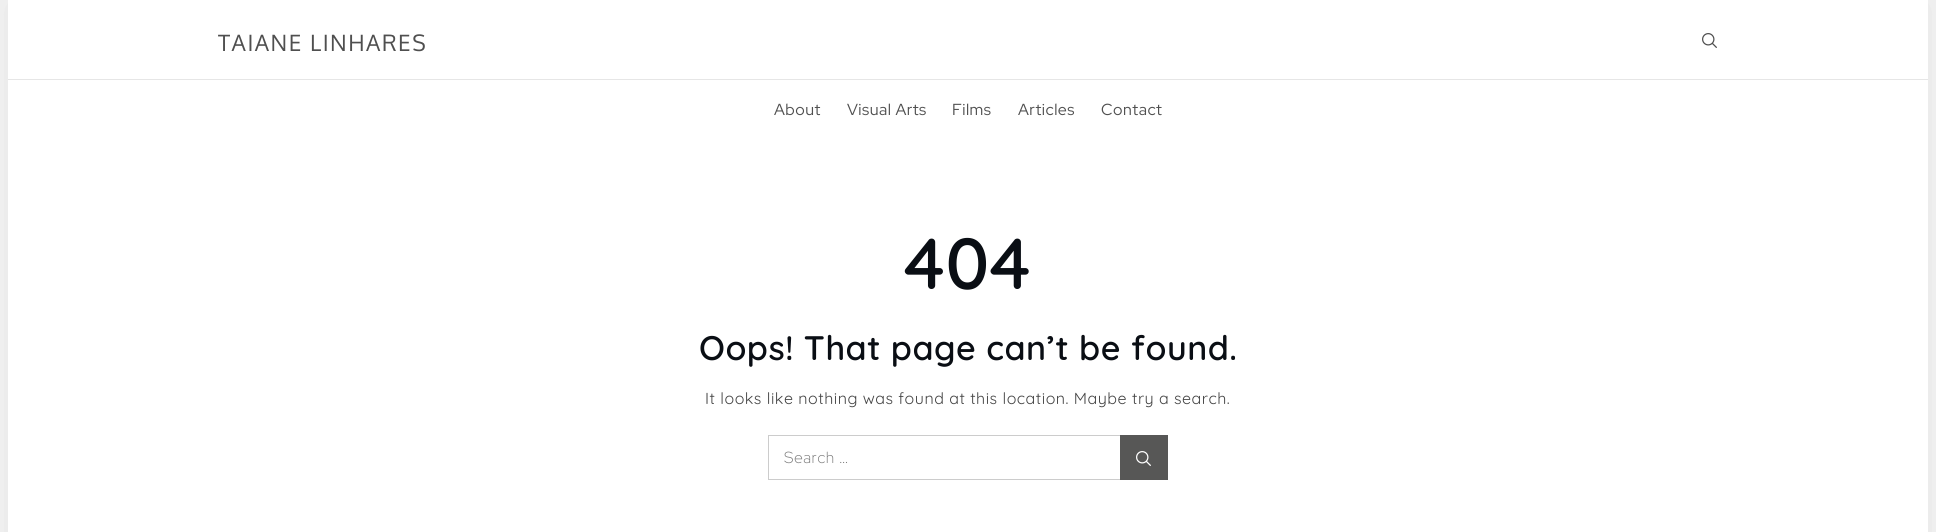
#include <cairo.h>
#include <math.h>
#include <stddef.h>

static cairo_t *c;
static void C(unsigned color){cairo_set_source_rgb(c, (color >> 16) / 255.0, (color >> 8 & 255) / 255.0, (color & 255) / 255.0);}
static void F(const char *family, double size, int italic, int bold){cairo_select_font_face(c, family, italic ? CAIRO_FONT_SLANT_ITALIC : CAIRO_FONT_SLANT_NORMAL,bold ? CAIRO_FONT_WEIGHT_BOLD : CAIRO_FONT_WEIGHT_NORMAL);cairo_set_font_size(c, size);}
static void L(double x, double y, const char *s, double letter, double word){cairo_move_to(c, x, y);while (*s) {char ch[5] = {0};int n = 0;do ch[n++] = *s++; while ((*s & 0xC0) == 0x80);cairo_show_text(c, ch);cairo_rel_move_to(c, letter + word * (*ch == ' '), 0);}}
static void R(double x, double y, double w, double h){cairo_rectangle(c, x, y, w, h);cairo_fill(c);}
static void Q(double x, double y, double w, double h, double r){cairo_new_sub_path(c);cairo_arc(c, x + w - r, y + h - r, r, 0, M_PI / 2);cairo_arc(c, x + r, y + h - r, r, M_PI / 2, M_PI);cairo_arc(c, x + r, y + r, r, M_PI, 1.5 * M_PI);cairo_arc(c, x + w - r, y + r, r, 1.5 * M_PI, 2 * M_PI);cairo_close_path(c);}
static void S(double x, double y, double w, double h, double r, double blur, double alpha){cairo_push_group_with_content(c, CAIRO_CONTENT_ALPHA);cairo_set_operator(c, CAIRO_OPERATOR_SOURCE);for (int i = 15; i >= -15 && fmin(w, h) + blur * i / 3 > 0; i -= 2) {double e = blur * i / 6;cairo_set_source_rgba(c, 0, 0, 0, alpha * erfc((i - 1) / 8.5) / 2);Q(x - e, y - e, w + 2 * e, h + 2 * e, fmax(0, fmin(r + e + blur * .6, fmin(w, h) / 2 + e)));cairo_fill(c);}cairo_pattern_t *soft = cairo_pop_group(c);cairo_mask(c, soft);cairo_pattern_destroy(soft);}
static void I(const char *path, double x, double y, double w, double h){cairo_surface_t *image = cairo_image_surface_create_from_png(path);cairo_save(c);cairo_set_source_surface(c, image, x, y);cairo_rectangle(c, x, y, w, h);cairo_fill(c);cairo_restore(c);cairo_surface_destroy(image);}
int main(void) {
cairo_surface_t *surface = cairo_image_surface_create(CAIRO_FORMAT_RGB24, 1936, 532);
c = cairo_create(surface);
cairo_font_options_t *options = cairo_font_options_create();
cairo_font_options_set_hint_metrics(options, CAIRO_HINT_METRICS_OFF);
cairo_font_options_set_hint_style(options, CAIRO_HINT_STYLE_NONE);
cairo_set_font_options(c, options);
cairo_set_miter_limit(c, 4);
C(0xf8f8f8);
cairo_paint(c);
C(0x000000);
S(8,0,1920,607,0,25,.1);
C(0xffffff);
R(8,0,1920,532);
F("Oxygen",22.5,0,0);
C(0x4f4f4f);
L(218,51,"TAIANE LINHARES",1.5,0);
I("1.png",1702,33,15,15);
C(0xe6e6e6);
R(8,79,1920,1);
F("Red Hat Display",16,0,0);
C(0x4f4f4f);
L(774,115,"About",.5,0);
L(847,115,"Visual Arts",.5,0);
L(952,115,"Films",.5,0);
L(1018,115,"Articles",.5,0);
L(1101,115,"Contact",.5,0);
F("Quicksand SemiBold",72,0,0);
C(0x0a0e14);
L(904,289,"404",.5,0);
F("Quicksand SemiBold",34,0,0);
L(699,360,"Oops! That page can’t be found.",.5,0);
F("Quicksand",16,0,0);
C(0x444444);
L(705,404,"It looks like nothing was found at this location. Maybe try a search.",.5,0);
cairo_rectangle(c,768.5,435.5,399,44);
C(0xcccccc);
cairo_set_line_width(c,1);
cairo_stroke(c);
F("Red Hat Display Light",16,0,0);
C(0x757575);
L(784,463,"Search …",.5,0);
C(0x575756);
R(1120,435,48,45);
I("2.png",1136,451,15,15);
cairo_surface_write_to_png(surface, "o.png");
cairo_font_options_destroy(options);
cairo_destroy(c);
cairo_surface_destroy(surface);
return 0;
}
